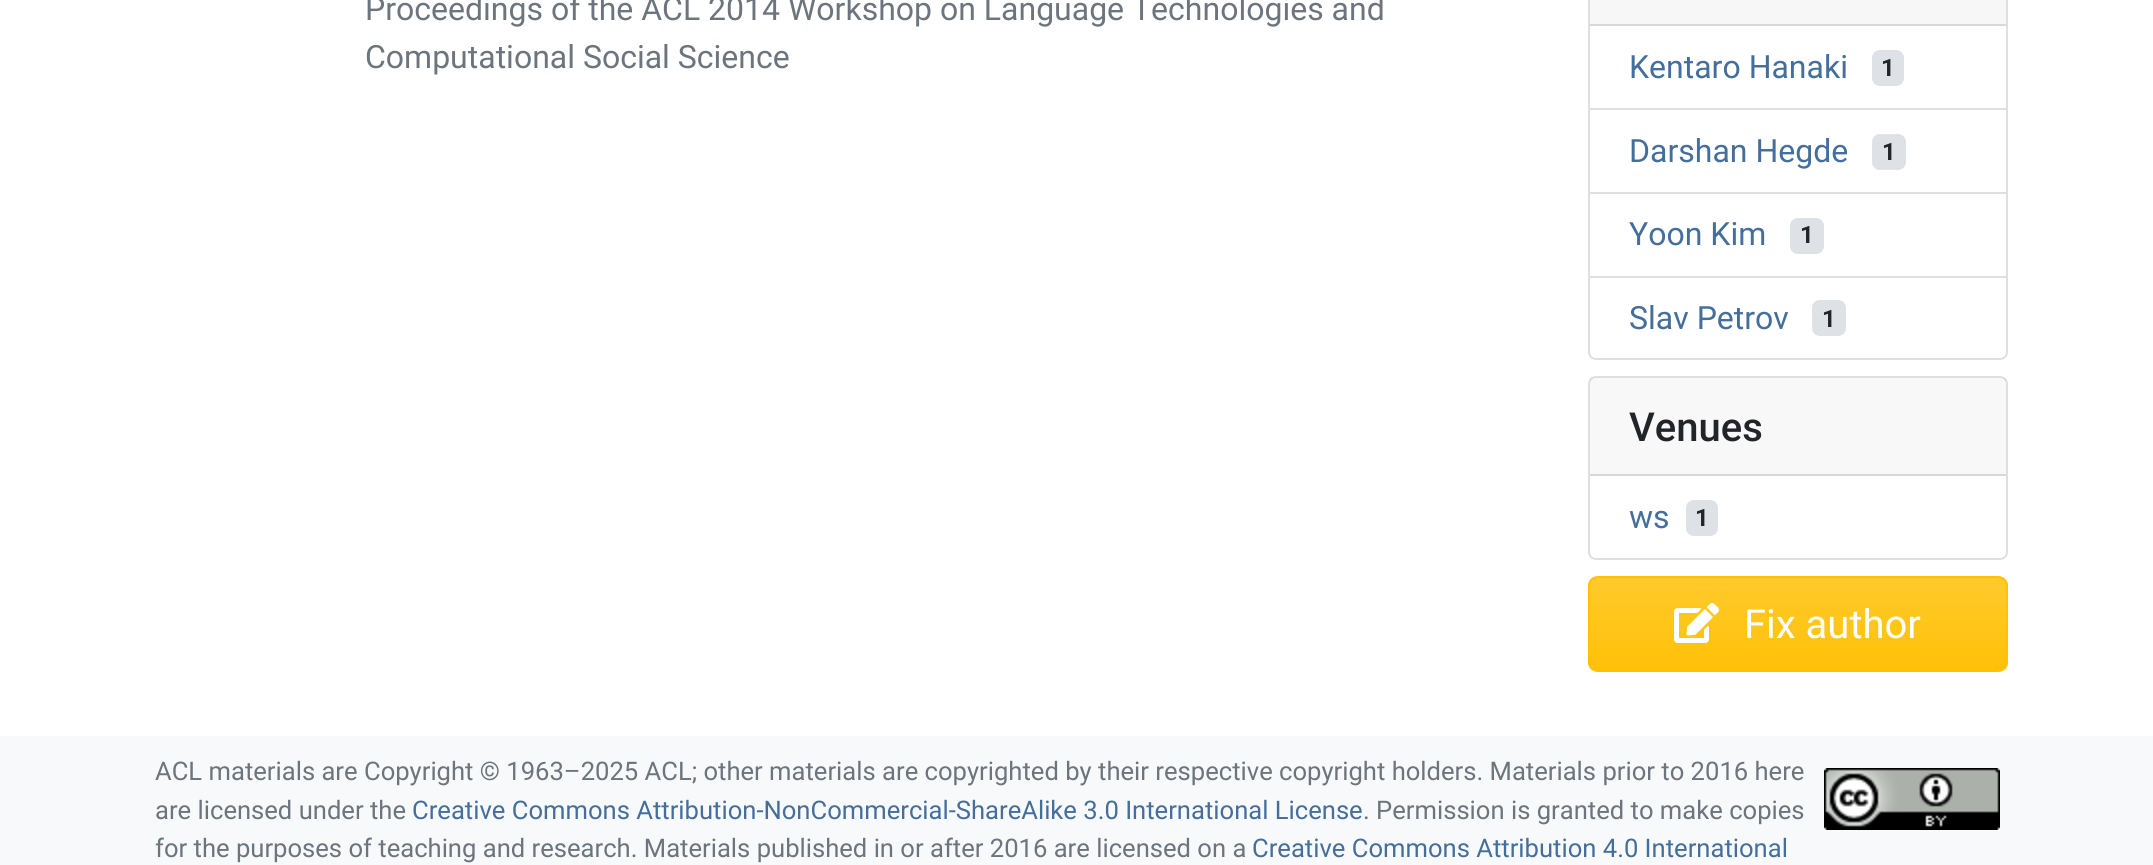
#include <cairo.h>
#include <math.h>
#include <stddef.h>

static cairo_t *c;
static void C(unsigned color){cairo_set_source_rgb(c, (color >> 16) / 255.0, (color >> 8 & 255) / 255.0, (color & 255) / 255.0);}
static void F(const char *family, double size, int italic, int bold){cairo_select_font_face(c, family, italic ? CAIRO_FONT_SLANT_ITALIC : CAIRO_FONT_SLANT_NORMAL,bold ? CAIRO_FONT_WEIGHT_BOLD : CAIRO_FONT_WEIGHT_NORMAL);cairo_set_font_size(c, size);}
static void T(double x, double y, const char *s){cairo_move_to(c, x, y);cairo_show_text(c, s);}
static void R(double x, double y, double w, double h){cairo_rectangle(c, x, y, w, h);cairo_fill(c);}
static void Q(double x, double y, double w, double h, double r){cairo_new_sub_path(c);cairo_arc(c, x + w - r, y + h - r, r, 0, M_PI / 2);cairo_arc(c, x + r, y + h - r, r, M_PI / 2, M_PI);cairo_arc(c, x + r, y + r, r, M_PI, 1.5 * M_PI);cairo_arc(c, x + w - r, y + r, r, 1.5 * M_PI, 2 * M_PI);cairo_close_path(c);}
static void I(const char *path, double x, double y, double w, double h){cairo_surface_t *image = cairo_image_surface_create_from_png(path);cairo_save(c);cairo_set_source_surface(c, image, x, y);cairo_rectangle(c, x, y, w, h);cairo_fill(c);cairo_restore(c);cairo_surface_destroy(image);}
int main(void) {
cairo_surface_t *surface = cairo_image_surface_create(CAIRO_FORMAT_RGB24, 2153, 865);
c = cairo_create(surface);
cairo_font_options_t *options = cairo_font_options_create();
cairo_font_options_set_hint_metrics(options, CAIRO_HINT_METRICS_OFF);
cairo_font_options_set_hint_style(options, CAIRO_HINT_STYLE_NONE);
cairo_set_font_options(c, options);
cairo_set_miter_limit(c, 4);
cairo_pattern_t *gradient;
C(0xffffff);
cairo_paint(c);
F("Roboto",32,0,0);
C(0x6c757d);
T(365,20,"Proceedings of the ACL 2014 Workshop on Language Technologies and");
T(365,68,"Computational Social Science");
Q(1589,-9,418,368,7);
C(0xdfdfdf);
cairo_stroke(c);
C(0xf7f7f7);
R(1590,0,416,24);
C(0xd8d8d8);
R(1590,24,416,2);
C(0x446e9b);
T(1629,78,"Kentaro Hanaki");
C(0xdee2e6);
Q(1872,50,32,36,8);
cairo_fill(c);
F("Roboto",24,0,1);
C(0x212529);
T(1881,76,"1");
C(0xdfdfdf);
R(1590,108,416,2);
F("Roboto",32,0,0);
C(0x446e9b);
T(1629,162,"Darshan Hegde");
C(0xdee2e6);
Q(1872,134,34,36,8);
cairo_fill(c);
F("Roboto",24,0,1);
C(0x212529);
T(1882,160,"1");
C(0xdfdfdf);
R(1590,192,416,2);
F("Roboto",32,0,0);
C(0x446e9b);
T(1629,245,"Yoon Kim");
C(0xdee2e6);
Q(1790,218,34,36,8);
cairo_fill(c);
F("Roboto",24,0,1);
C(0x212529);
T(1800,243,"1");
C(0xdfdfdf);
R(1590,276,416,2);
F("Roboto",32,0,0);
C(0x446e9b);
T(1629,329,"Slav Petrov");
C(0xdee2e6);
Q(1812,300,34,36,8);
cairo_fill(c);
F("Roboto",24,0,1);
C(0x212529);
T(1822,327,"1");
Q(1589,377,418,182,7);
C(0xdfdfdf);
cairo_stroke(c);
cairo_set_source_rgba(c,0,0,0,0.03);
R(1590,378,416,96);
C(0xd8d8d8);
R(1590,474,416,2);
F("Roboto Medium",40,0,0);
C(0x212529);
T(1629,441,"Venues");
F("Roboto",32,0,0);
C(0x446e9b);
T(1629,528,"ws");
C(0xdee2e6);
Q(1686,500,32,36,8);
cairo_fill(c);
F("Roboto",24,0,1);
C(0x212529);
T(1695,526,"1");
cairo_save(c);
Q(1588,576,420,96,10);
cairo_clip(c);
gradient = cairo_pattern_create_linear(1798,578,1798,670);
cairo_pattern_add_color_stop_rgba(gradient,0,1,0.792,0.173,1);
cairo_pattern_add_color_stop_rgba(gradient,1,1,0.757,0.027,1);
cairo_set_source(c,gradient);
cairo_pattern_destroy(gradient);
R(1588,578,420,92);
cairo_restore(c);
Q(1589,577,418,94,9);
C(0xffc107);
cairo_stroke(c);
I("1.png",1674,603,45,40);
F("Roboto",40,0,0);
C(0xffffff);
T(1744,638,"Fix author");
C(0xf8f9fa);
R(0,736,2153,129);
F("Roboto",25.6,0,0);
C(0x6c757d);
T(155,780,"ACL materials are Copyright © 1963–2025 ACL; other materials are copyrighted by their respective copyright holders. Materials prior to 2016 here");
I("2.png",1824,768,176,62);
T(155,819,"are licensed under the");
C(0x446e9b);
T(412,819,"Creative Commons Attribution-NonCommercial-ShareAlike 3.0 International License");
C(0x6c757d);
T(1363,819,". Permission is granted to make copies");
T(155,857,"for the purposes of teaching and research. Materials published in or after 2016 are licensed on a");
C(0x446e9b);
T(1252,857,"Creative Commons Attribution 4.0 International");
cairo_surface_write_to_png(surface, "o.png");
cairo_font_options_destroy(options);
cairo_destroy(c);
cairo_surface_destroy(surface);
return 0;
}
